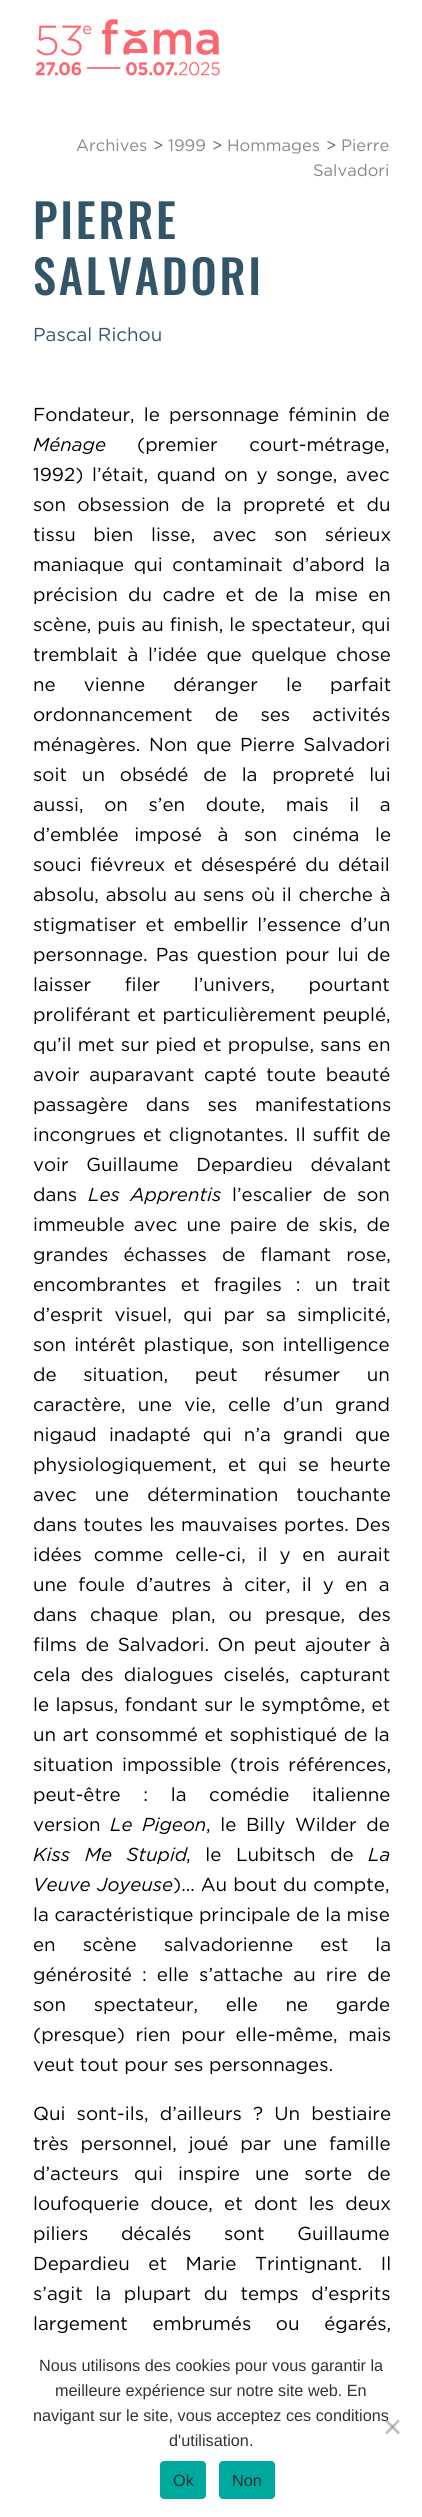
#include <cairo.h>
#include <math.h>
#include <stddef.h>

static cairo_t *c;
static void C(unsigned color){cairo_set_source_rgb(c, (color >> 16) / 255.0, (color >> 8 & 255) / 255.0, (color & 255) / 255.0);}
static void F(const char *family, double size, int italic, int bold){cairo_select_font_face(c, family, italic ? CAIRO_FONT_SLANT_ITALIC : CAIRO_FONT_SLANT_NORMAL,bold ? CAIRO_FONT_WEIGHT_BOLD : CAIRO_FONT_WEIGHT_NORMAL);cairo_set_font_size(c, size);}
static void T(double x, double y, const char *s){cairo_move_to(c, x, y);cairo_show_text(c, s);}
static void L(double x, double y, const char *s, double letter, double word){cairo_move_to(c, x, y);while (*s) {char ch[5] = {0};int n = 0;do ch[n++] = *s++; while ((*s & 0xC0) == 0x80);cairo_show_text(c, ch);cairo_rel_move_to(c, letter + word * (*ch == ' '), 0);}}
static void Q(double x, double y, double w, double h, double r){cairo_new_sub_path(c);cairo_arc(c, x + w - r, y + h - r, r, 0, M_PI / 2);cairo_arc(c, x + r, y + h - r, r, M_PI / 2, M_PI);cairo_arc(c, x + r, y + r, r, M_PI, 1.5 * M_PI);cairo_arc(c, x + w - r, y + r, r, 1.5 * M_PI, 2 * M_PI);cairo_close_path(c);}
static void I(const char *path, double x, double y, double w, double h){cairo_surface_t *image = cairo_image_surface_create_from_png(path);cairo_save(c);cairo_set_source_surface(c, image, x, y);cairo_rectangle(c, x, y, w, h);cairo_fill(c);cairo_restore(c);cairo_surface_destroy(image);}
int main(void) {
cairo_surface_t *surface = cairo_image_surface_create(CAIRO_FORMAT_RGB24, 422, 2517);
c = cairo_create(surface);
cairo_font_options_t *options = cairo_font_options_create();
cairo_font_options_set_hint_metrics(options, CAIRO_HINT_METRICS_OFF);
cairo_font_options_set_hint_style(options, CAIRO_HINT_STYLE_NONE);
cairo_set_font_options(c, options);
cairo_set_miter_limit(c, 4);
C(0xffffff);
cairo_paint(c);
I("1.png",35,19,185,57);
F("Gotham",16.5,0,0);
C(0x888888);
T(76,151,"Archives");
C(0x666666);
T(153,151,">");
C(0x888888);
T(168,151,"1999");
C(0x666666);
T(212,151,">");
C(0x888888);
T(227,151,"Hommages");
C(0x666666);
T(326,151,">");
C(0x888888);
T(341,151,"Pierre");
T(313,176,"Salvadori");
F("Oswald Medium",46.5,0,0);
C(0x325568);
L(33,239,"PIERRE",2.75,0);
L(33,295,"SALVADORI",2.75,0);
F("Gotham",18.75,0,0);
T(33,341,"Pascal Richou");
C(0x000000);
L(33,421,"Fondateur, le personnage féminin de",0,3.5);
F("Gotham",18.75,1,0);
T(33,451,"Ménage");
F("Gotham",18.75,0,0);
L(137,451,"(premier court-métrage,",0,26);
L(33,481,"1992) l’était, quand on y songe, avec",0,3);
L(33,511,"son obsession de la propreté et du",0,5.75);
L(33,541,"tissu bien lisse, avec son sérieux",0,12);
L(33,571,"maniaque qui contaminait d’abord la",0,4);
L(33,601,"précision du cadre et de la mise en",0,4.75);
L(33,631,"scène, puis au finish, le spectateur, qui",0,.25);
L(33,661,"tremblait à l’idée que quelque chose",0,4);
L(33,691,"ne vienne déranger le parfait",0,22.5);
L(33,721,"ordonnancement de ses activités",0,16.5);
L(33,751,"ménagères. Non que Pierre Salvadori",0,3);
L(33,781,"soit un obsédé de la propreté lui",0,9.25);
L(33,811,"aussi, on s’en doute, mais il a",0,15);
L(33,841,"d’emblée imposé à son cinéma le",0,10);
L(33,871,"souci fiévreux et désespéré du détail",0,3);
L(33,901,"absolu, absolu au sens où il cherche à",0,1.25);
L(33,931,"stigmatiser et embellir l’essence d’un",0,3.5);
L(33,961,"personnage. Pas question pour lui de",0,2.5);
L(33,991,"laisser filer l’univers, pourtant",0,28);
L(33,1021,"proliférant et particulièrement peuplé,",0,1);
L(33,1051,"qu’il met sur pied et propulse, sans en",0,.75);
L(33,1081,"avoir auparavant capté toute beauté",0,4);
L(33,1111,"passagère dans ses manifestations",0,12);
L(33,1141,"incongrues et clignotantes. Il suffit de",0,1.5);
L(33,1171,"voir Guillaume Depardieu dévalant",0,12);
T(33,1201,"dans");
F("Gotham",18.75,1,0);
L(88,1201,"Les Apprentis",0,5);
F("Gotham",18.75,0,0);
L(232,1201,"l’escalier de son",0,5);
L(33,1231,"immeuble avec une paire de skis, de",0,3.5);
L(33,1261,"grandes échasses de flamant rose,",0,9.5);
L(33,1291,"encombrantes et fragiles : un trait",0,8.5);
L(33,1321,"d’esprit visuel, qui par sa simplicité,",0,5.75);
L(33,1351,"son intérêt plastique, son intelligence",0,2.5);
L(33,1381,"de situation, peut résumer un",0,21);
L(33,1411,"caractère, une vie, celle d’un grand",0,6.5);
L(33,1441,"nigaud inadapté qui n’a grandi que",0,6.5);
L(33,1471,"physiologiquement, et qui se heurte",0,5.75);
L(33,1501,"avec une détermination touchante",0,12.5);
L(33,1531,"dans toutes les mauvaises portes. Des",0,.75);
L(33,1561,"idées comme celle-ci, il y en aurait",0,6.25);
L(33,1591,"une foule d’autres à citer, il y en a",0,5.5);
L(33,1621,"dans chaque plan, ou presque, des",0,7.25);
L(33,1651,"films de Salvadori. On peut ajouter à",0,3);
L(33,1681,"cela des dialogues ciselés, capturant",0,4.5);
L(33,1711,"le lapsus, fondant sur le symptôme, et",0,.75);
L(33,1741,"un art consommé et sophistiqué de la",0,1);
L(33,1771,"situation impossible (trois références,",0,3);
L(33,1801,"peut-être : la comédie italienne",0,17);
T(33,1831,"version");
F("Gotham",18.75,1,0);
L(110,1831,"Le Pigeon",0,4);
F("Gotham",18.75,0,0);
L(206,1831,", le Billy Wilder de",0,4);
F("Gotham",18.75,1,0);
L(33,1861,"Kiss Me Stupid",0,9);
F("Gotham",18.75,0,0);
L(186,1861,", le Lubitsch de",0,9);
F("Gotham",18.75,1,0);
T(368,1861,"La");
L(33,1891,"Veuve Joyeuse",0,.75);
F("Gotham",18.75,0,0);
L(173,1891,")… Au bout du compte,",0,.5);
T(33,1921,"la caractéristique principale de la mise");
L(33,1951,"en scène salvadorienne est la",0,21.5);
L(33,1981,"générosité : elle s’attache au rire de",0,4.5);
L(33,2011,"son spectateur, elle ne garde",0,22);
L(33,2041,"(presque) rien pour elle-même, mais",0,5);
T(33,2071,"veut tout pour ses personnages.");
L(33,2120,"Qui sont-ils, d’ailleurs ? Un bestiaire",0,5.5);
L(33,2150,"très personnel, joué par une famille",0,6.25);
L(33,2180,"d’acteurs qui inspire une sorte de",0,9.5);
L(33,2210,"loufoquerie douce, et dont les deux",0,5.5);
L(33,2240,"piliers décalés sont Guillaume",0,27);
L(33,2270,"Depardieu et Marie Trintignant. Il",0,13);
L(33,2300,"s’agit la plupart du temps d’esprits",0,7);
L(33,2330,"largement embrumés ou égarés,",0,19);
F("Liberation Sans",16.25,0,0);
C(0x333333);
T(39,2371,"Nous utilisons des cookies pour vous garantir la");
T(55,2396,"meilleure expérience sur notre site web. En");
T(33,2421,"navigant sur le site, vous acceptez ces conditions");
T(169,2446,"d'utilisation.");
C(0xc0c0c0);
cairo_new_path(c);
cairo_move_to(c,398,2419.5);
cairo_line_to(c,400,2421);
cairo_line_to(c,387,2434.5);
cairo_line_to(c,385,2432.5);
cairo_close_path(c);
cairo_fill(c);
cairo_set_source_rgba(c,0.502,0.502,0.502,0.5);
cairo_new_path(c);
cairo_move_to(c,385,2421);
cairo_line_to(c,387,2419.5);
cairo_line_to(c,400,2432.5);
cairo_line_to(c,398,2434.5);
cairo_close_path(c);
cairo_fill(c);
C(0x00a99d);
Q(160,2461,46,38,4);
cairo_fill(c);
C(0x333333);
T(173,2486,"Ok");
C(0x00a99d);
Q(219,2461,56,38,4);
cairo_fill(c);
C(0x333333);
T(232,2486,"Non");
cairo_surface_write_to_png(surface, "o.png");
cairo_font_options_destroy(options);
cairo_destroy(c);
cairo_surface_destroy(surface);
return 0;
}
